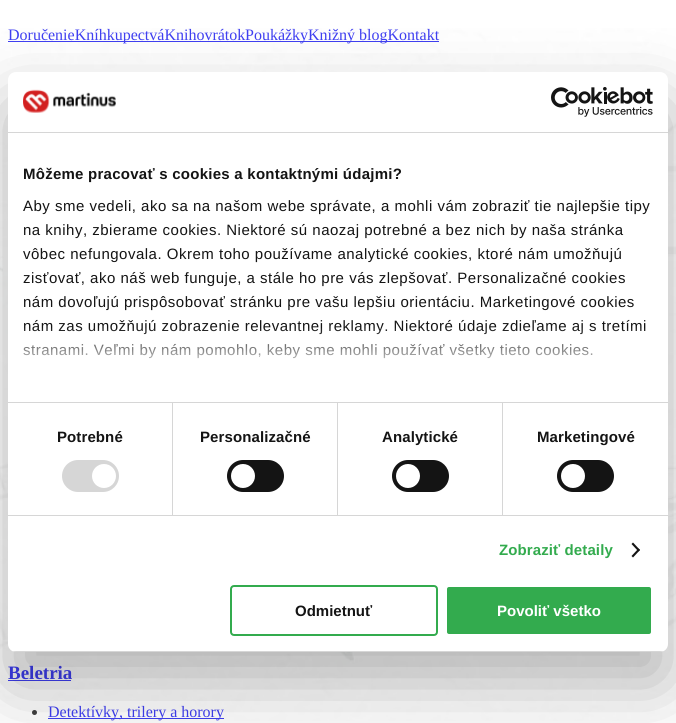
#include <cairo.h>
#include <math.h>
#include <stddef.h>

static cairo_t *c;
static void C(unsigned color){cairo_set_source_rgb(c, (color >> 16) / 255.0, (color >> 8 & 255) / 255.0, (color & 255) / 255.0);}
static void F(const char *family, double size, int italic, int bold){cairo_select_font_face(c, family, italic ? CAIRO_FONT_SLANT_ITALIC : CAIRO_FONT_SLANT_NORMAL,bold ? CAIRO_FONT_WEIGHT_BOLD : CAIRO_FONT_WEIGHT_NORMAL);cairo_set_font_size(c, size);}
static void T(double x, double y, const char *s){cairo_move_to(c, x, y);cairo_show_text(c, s);}
static void L(double x, double y, const char *s, double letter, double word){cairo_move_to(c, x, y);while (*s) {char ch[5] = {0};int n = 0;do ch[n++] = *s++; while ((*s & 0xC0) == 0x80);cairo_show_text(c, ch);cairo_rel_move_to(c, letter + word * (*ch == ' '), 0);}}
static void R(double x, double y, double w, double h){cairo_rectangle(c, x, y, w, h);cairo_fill(c);}
static void Q(double x, double y, double w, double h, double r){cairo_new_sub_path(c);cairo_arc(c, x + w - r, y + h - r, r, 0, M_PI / 2);cairo_arc(c, x + r, y + h - r, r, M_PI / 2, M_PI);cairo_arc(c, x + r, y + r, r, M_PI, 1.5 * M_PI);cairo_arc(c, x + w - r, y + r, r, 1.5 * M_PI, 2 * M_PI);cairo_close_path(c);}
static void S(double x, double y, double w, double h, double r, double blur, double alpha){cairo_push_group_with_content(c, CAIRO_CONTENT_ALPHA);cairo_set_operator(c, CAIRO_OPERATOR_SOURCE);for (int i = 15; i >= -15 && fmin(w, h) + blur * i / 3 > 0; i -= 2) {double e = blur * i / 6;cairo_set_source_rgba(c, 0, 0, 0, alpha * erfc((i - 1) / 8.5) / 2);Q(x - e, y - e, w + 2 * e, h + 2 * e, fmax(0, fmin(r + e + blur * .6, fmin(w, h) / 2 + e)));cairo_fill(c);}cairo_pattern_t *soft = cairo_pop_group(c);cairo_mask(c, soft);cairo_pattern_destroy(soft);}
static void I(const char *path, double x, double y, double w, double h){cairo_surface_t *image = cairo_image_surface_create_from_png(path);cairo_save(c);cairo_set_source_surface(c, image, x, y);cairo_rectangle(c, x, y, w, h);cairo_fill(c);cairo_restore(c);cairo_surface_destroy(image);}
int main(void) {
cairo_surface_t *surface = cairo_image_surface_create(CAIRO_FORMAT_RGB24, 676, 723);
c = cairo_create(surface);
cairo_font_options_t *options = cairo_font_options_create();
cairo_font_options_set_hint_metrics(options, CAIRO_HINT_METRICS_OFF);
cairo_font_options_set_hint_style(options, CAIRO_HINT_STYLE_NONE);
cairo_set_font_options(c, options);
cairo_set_miter_limit(c, 4);
cairo_pattern_t *gradient;
C(0xffffff);
cairo_paint(c);
C(0x0000ee);
R(8,41,156,1);
F("Liberation Serif",16,0,0);
T(8,40,"DoručenieKníhkupectváKnihovrátok");
R(164,41,144,1);
T(245,40,"Poukážky");
R(308,41,131,1);
T(308,40,"Knižný blogKontakt");
F("Liberation Serif",19,0,1);
T(8,679,"Beletria");
R(8,680,63,1);
C(0x000000);
cairo_new_path(c);
cairo_arc(c,34.5,712.5,2.5,0,2 * M_PI);
cairo_fill(c);
C(0x0000ee);
R(48,718,176,1);
F("Liberation Serif",16,0,0);
T(48,717,"Detektívky, trilery a horory");
I("1.png",0,28,676,693);
C(0x000000);
S(8,104,660,580,8,34,.3);
C(0xffffff);
Q(8,72,660,580,8);
cairo_fill(c);
C(0xd6d6d6);
R(8,132,660,1);
I("2.png",23,89,93,24);
I("3.png",551,87,102,30);
R(8,402,660,1);
F("Liberation Sans",15,0,1);
C(0x141414);
L(23,179,"Môžeme pracovať s cookies a kontaktnými údajmi?",.25,0);
F("Liberation Sans",15,0,0);
L(23,211,"Aby sme vedeli, ako sa na našom webe správate, a mohli vám zobraziť tie najlepšie tipy",.5,0);
L(23,235,"na knihy, zbierame cookies. Niektoré sú naozaj potrebné a bez nich by naša stránka",.5,0);
L(23,259,"vôbec nefungovala. Okrem toho používame analytické cookies, ktoré nám umožňujú",.5,0);
L(23,283,"zisťovať, ako náš web funguje, a stále ho pre vás zlepšovať. Personalizačné cookies",.5,0);
L(23,307,"nám dovoľujú prispôsobovať stránku pre vašu lepšiu orientáciu. Marketingové cookies",.5,0);
L(23,331,"nám zas umožňujú zobrazenie relevantnej reklamy. Niektoré údaje zdieľame aj s tretími",.5,0);
L(23,355,"stranami. Veľmi by nám pomohlo, keby sme mohli používať všetky tieto cookies.",.5,0);
gradient = cairo_pattern_create_linear(332,402,332,327);
cairo_pattern_add_color_stop_rgba(gradient,0,1,1,1,1);
cairo_pattern_add_color_stop_rgba(gradient,.5,1,1,1,.8);
cairo_pattern_add_color_stop_rgba(gradient,1,1,1,1,0);
cairo_set_source(c,gradient);
cairo_pattern_destroy(gradient);
R(23,328,623,31);
C(0xd6d6d6);
R(8,515,660,1);
R(172,403,1,112);
F("Liberation Sans",15,0,1);
C(0x141414);
L(57,442,"Potrebné",.1,0);
C(0xd6d6d6);
Q(62,460,57,32,16);
cairo_fill(c);
C(0xffffff);
cairo_arc(c,104,476,12,0,2 * M_PI);
cairo_fill(c);
C(0xd6d6d6);
R(337,403,1,112);
C(0x141414);
L(200,442,"Personalizačné",.1,0);
Q(227,460,57,32,16);
cairo_fill(c);
C(0xffffff);
cairo_arc(c,243,476,12,0,2 * M_PI);
cairo_fill(c);
C(0xd6d6d6);
R(502,403,1,112);
C(0x141414);
L(382,442,"Analytické",.1,0);
Q(392,460,57,32,16);
cairo_fill(c);
C(0xffffff);
cairo_arc(c,408,476,12,0,2 * M_PI);
cairo_fill(c);
C(0x141414);
L(537,442,"Marketingové",.1,0);
Q(557,460,57,32,16);
cairo_fill(c);
C(0xffffff);
cairo_arc(c,573,476,12,0,2 * M_PI);
cairo_fill(c);
C(0x33ab4e);
L(499,555,"Zobraziť detaily",.1,0);
C(0x141414);
cairo_new_path(c);
cairo_move_to(c,633,542.5);
cairo_line_to(c,640,550);
cairo_line_to(c,638.5,551.5);
cairo_line_to(c,631.5,544);
cairo_close_path(c);
cairo_fill(c);
cairo_new_path(c);
cairo_move_to(c,638.5,548.5);
cairo_line_to(c,640,550);
cairo_line_to(c,633,557.5);
cairo_line_to(c,631.5,556);
cairo_close_path(c);
cairo_fill(c);
cairo_save(c);
Q(8,72,660,580,8);
cairo_clip(c);
C(0xd6d6d6);
R(8,651,660,1);
cairo_restore(c);
Q(231,586,206,49,3);
C(0x33ab4e);
cairo_stroke(c);
C(0x141414);
T(295,616,"Odmietnuť");
C(0x33ab4e);
Q(446,586,206,49,3);
cairo_fill_preserve(c);
C(0xffffff);
cairo_stroke(c);
T(497,616,"Povoliť všetko");
cairo_surface_write_to_png(surface, "o.png");
cairo_font_options_destroy(options);
cairo_destroy(c);
cairo_surface_destroy(surface);
return 0;
}
